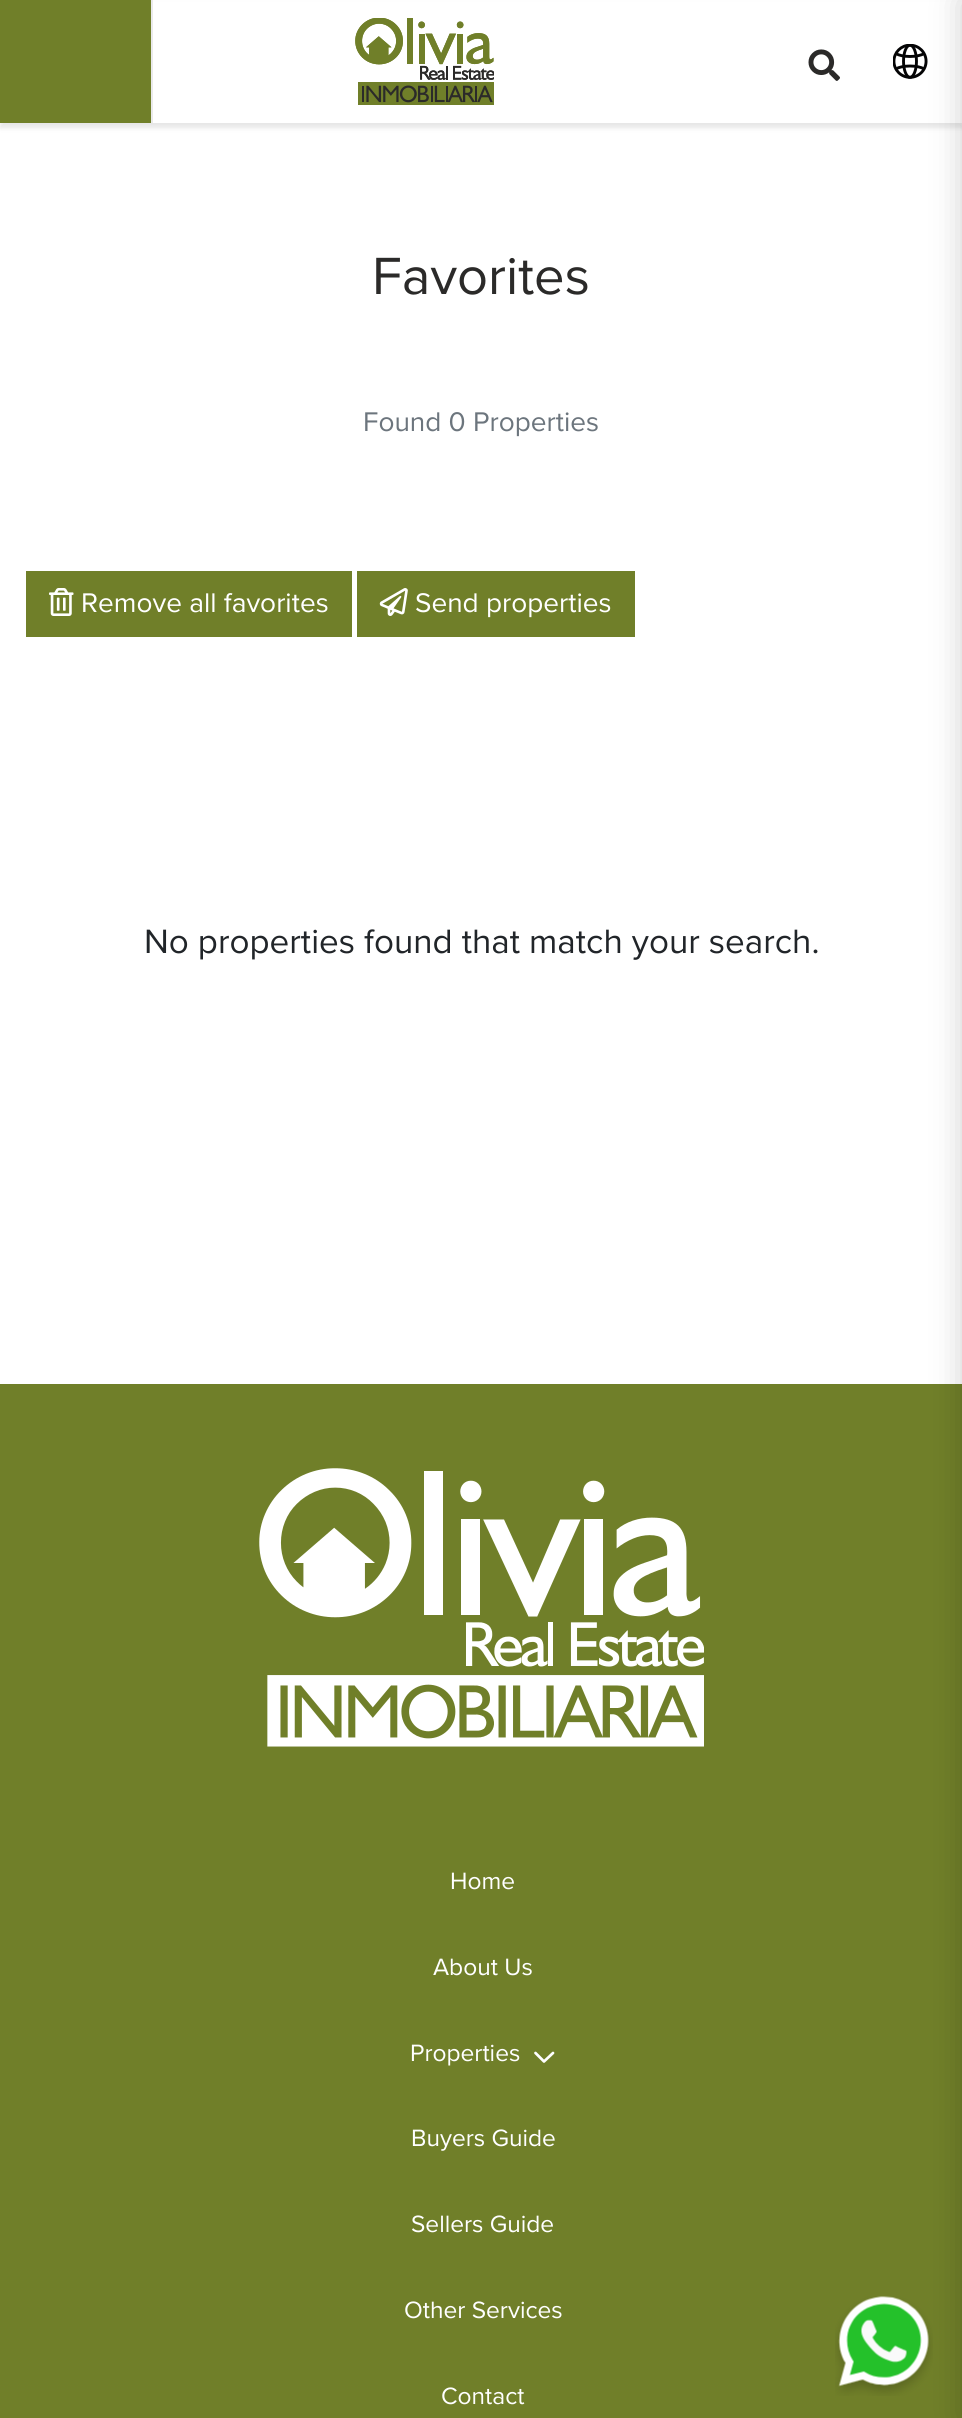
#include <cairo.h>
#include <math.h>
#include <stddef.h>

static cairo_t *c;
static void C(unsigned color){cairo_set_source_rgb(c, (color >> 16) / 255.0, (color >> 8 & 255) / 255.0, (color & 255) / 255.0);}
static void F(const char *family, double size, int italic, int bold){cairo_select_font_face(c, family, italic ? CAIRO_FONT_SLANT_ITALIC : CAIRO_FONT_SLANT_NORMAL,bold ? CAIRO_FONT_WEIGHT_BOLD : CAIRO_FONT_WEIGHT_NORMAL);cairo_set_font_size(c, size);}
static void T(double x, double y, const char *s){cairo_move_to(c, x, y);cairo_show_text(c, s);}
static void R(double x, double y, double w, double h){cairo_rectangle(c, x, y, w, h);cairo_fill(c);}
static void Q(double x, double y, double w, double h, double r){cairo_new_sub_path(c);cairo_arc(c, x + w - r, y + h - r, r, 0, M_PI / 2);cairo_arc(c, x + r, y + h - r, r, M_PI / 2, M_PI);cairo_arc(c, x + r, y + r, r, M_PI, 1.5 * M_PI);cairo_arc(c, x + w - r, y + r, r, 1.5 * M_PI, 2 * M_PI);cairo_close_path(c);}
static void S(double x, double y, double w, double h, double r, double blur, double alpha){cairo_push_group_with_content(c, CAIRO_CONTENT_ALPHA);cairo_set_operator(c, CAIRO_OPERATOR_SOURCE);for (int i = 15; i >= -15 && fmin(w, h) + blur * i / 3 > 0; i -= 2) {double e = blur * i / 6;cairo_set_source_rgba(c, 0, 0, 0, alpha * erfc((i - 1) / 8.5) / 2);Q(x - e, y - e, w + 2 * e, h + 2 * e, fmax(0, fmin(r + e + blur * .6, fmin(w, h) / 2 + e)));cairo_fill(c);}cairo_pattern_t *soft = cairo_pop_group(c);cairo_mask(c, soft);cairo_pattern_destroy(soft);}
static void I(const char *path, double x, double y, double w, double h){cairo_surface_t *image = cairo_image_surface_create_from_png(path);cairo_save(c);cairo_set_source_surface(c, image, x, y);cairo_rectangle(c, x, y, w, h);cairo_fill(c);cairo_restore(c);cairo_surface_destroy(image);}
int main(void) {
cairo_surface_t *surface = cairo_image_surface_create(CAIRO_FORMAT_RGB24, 962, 2418);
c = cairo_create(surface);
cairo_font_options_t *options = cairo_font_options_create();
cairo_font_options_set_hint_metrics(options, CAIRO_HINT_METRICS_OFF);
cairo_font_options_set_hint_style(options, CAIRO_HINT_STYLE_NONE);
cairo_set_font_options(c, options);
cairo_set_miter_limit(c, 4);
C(0xffffff);
cairo_paint(c);
C(0x000000);
S(0,5,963,123,0,2.5,.1);
C(0xffffff);
R(153,2,809,121);
C(0x707f29);
R(0,0,151,123);
C(0xeaeaea);
R(151,0,2,123);
I("4.png",355,18,139,87);
I("1.png",355,18,139,62);
I("2.png",808,49,32,32);
I("3.png",893,44,35,35);
F("Proxima Nova",54.25,0,0);
C(0x2b2a29);
T(372,294,"Favorites");
F("Proxima Nova",28,0,0);
C(0x6c757d);
T(363,431,"Found 0 Properties");
C(0x707f29);
R(26,571,326,66);
I("5.png",49,588,25,28);
C(0xffffff);
T(81,612,"Remove all favorites");
C(0x707f29);
R(357,571,278,66);
I("6.png",379,588,29,28);
C(0xffffff);
T(415,612,"Send properties");
C(0x707f29);
R(0,1384,962,1034);
I("8.png",835,2296,98,100);
C(0x000000);
S(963,0,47,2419,0,16,.2);
F("Proxima Nova",35,0,0);
C(0x212529);
T(144,953,"No properties found that match your search.");
I("7.png",259,1468,445,279);
F("Proxima Nova",24.5,0,0);
C(0xffffff);
T(450,1889,"Home");
T(433,1975,"About Us");
T(410,2061,"Properties");
cairo_new_path(c);
cairo_move_to(c,553,2053);
cairo_line_to(c,544,2061.5);
cairo_line_to(c,535.5,2053);
cairo_set_line_width(c,2.7);
cairo_set_line_cap(c,CAIRO_LINE_CAP_ROUND);
cairo_set_line_join(c,CAIRO_LINE_JOIN_ROUND);
cairo_stroke(c);
T(411,2146,"Buyers Guide");
T(411,2232,"Sellers Guide");
T(404,2318,"Other Services");
T(441,2404,"Contact");
cairo_surface_write_to_png(surface, "o.png");
cairo_font_options_destroy(options);
cairo_destroy(c);
cairo_surface_destroy(surface);
return 0;
}
